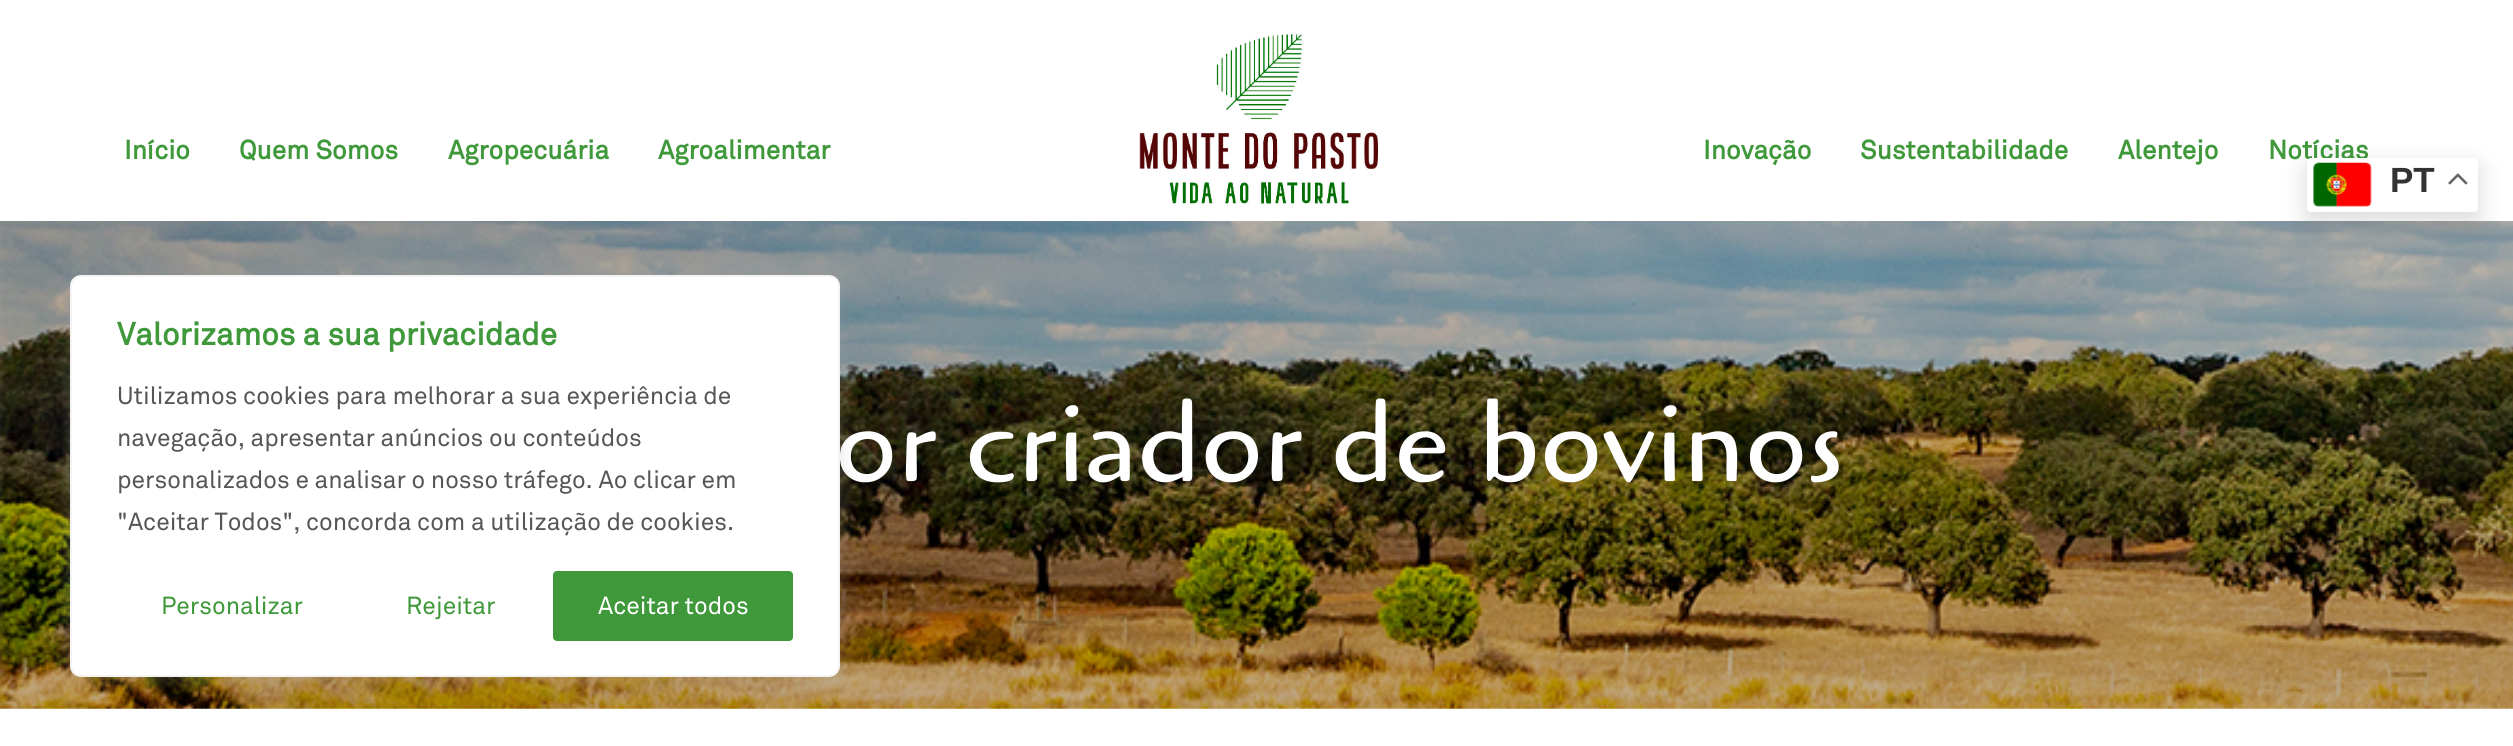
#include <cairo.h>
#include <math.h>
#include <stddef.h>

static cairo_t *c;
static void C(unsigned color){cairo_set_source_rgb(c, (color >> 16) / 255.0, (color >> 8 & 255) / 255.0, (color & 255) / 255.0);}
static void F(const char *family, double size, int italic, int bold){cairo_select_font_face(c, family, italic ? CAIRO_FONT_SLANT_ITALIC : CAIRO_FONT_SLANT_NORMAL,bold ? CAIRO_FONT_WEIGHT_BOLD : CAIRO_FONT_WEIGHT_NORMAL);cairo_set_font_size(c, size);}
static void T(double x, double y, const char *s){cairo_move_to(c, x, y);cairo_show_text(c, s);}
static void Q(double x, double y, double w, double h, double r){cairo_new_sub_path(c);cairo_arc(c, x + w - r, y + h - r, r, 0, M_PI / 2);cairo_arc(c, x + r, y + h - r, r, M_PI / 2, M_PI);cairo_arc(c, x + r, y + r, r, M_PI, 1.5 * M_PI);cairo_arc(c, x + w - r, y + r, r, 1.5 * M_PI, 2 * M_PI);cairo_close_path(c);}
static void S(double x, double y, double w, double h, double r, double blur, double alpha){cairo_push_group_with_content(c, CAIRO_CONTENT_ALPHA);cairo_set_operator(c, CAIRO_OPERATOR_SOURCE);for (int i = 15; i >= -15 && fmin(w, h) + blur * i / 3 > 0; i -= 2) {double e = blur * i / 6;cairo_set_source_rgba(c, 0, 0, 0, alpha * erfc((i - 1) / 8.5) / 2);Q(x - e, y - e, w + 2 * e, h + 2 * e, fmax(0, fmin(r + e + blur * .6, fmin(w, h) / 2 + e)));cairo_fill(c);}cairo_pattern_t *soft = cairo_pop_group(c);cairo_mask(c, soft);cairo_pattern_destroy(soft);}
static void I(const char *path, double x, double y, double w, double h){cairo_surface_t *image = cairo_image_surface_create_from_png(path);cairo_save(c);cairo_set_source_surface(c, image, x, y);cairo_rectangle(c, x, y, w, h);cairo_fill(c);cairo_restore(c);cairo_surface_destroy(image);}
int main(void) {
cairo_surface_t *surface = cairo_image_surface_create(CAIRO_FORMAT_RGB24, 2513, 746);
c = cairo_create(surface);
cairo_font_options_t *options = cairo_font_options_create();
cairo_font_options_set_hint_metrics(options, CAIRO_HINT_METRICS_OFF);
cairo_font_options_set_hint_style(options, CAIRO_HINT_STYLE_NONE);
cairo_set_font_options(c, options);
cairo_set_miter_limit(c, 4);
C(0xffffff);
cairo_paint(c);
I("1.png",1139,34,240,172);
F("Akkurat",26.25,0,1);
C(0x3f993b);
T(124,159,"Início");
T(239,159,"Quem Somos");
T(448,159,"Agropecuária");
T(658,159,"Agroalimentar");
T(1703,159,"Inovação");
T(1860,159,"Sustentabilidade");
T(2118,159,"Alentejo");
T(2268,159,"Notícias");
I("2.png",0,221,2513,488);
F("Cagliostro",112,0,0);
C(0xffffff);
T(835,481,"or criador de bovinos");
C(0x000000);
S(2307,166,171,55,4,13,.15);
C(0xffffff);
Q(2307,158,171,54,4);
cairo_fill(c);
I("3.png",2313,162,59,45);
F("Liberation Sans",35,0,1);
C(0x333333);
T(2390,192,"PT");
I("4.png",2448,173,20,12);
C(0xacabab);
S(70,273,770,403,11,9,.3);
C(0xffffff);
Q(71,276,768,400,10);
cairo_fill_preserve(c);
C(0xf4f4f4);
cairo_stroke(c);
F("Akkurat",31.5,0,1);
C(0x3f993b);
T(117,345,"Valorizamos a sua privacidade");
F("Akkurat",24.5,0,0);
C(0x565656);
T(117,404,"Utilizamos cookies para melhorar a sua experiência de");
T(117,446,"navegação, apresentar anúncios ou conteúdos");
T(117,488,"personalizados e analisar o nosso tráfego. Ao clicar em");
T(117,530,"\"Aceitar Todos\", concorda com a utilização de cookies.");
C(0x3f993b);
T(161,614,"Personalizar");
T(406,614,"Rejeitar");
Q(553,571,240,70,4);
cairo_fill(c);
C(0xffffff);
T(598,614,"Aceitar todos");
cairo_surface_write_to_png(surface, "o.png");
cairo_font_options_destroy(options);
cairo_destroy(c);
cairo_surface_destroy(surface);
return 0;
}
